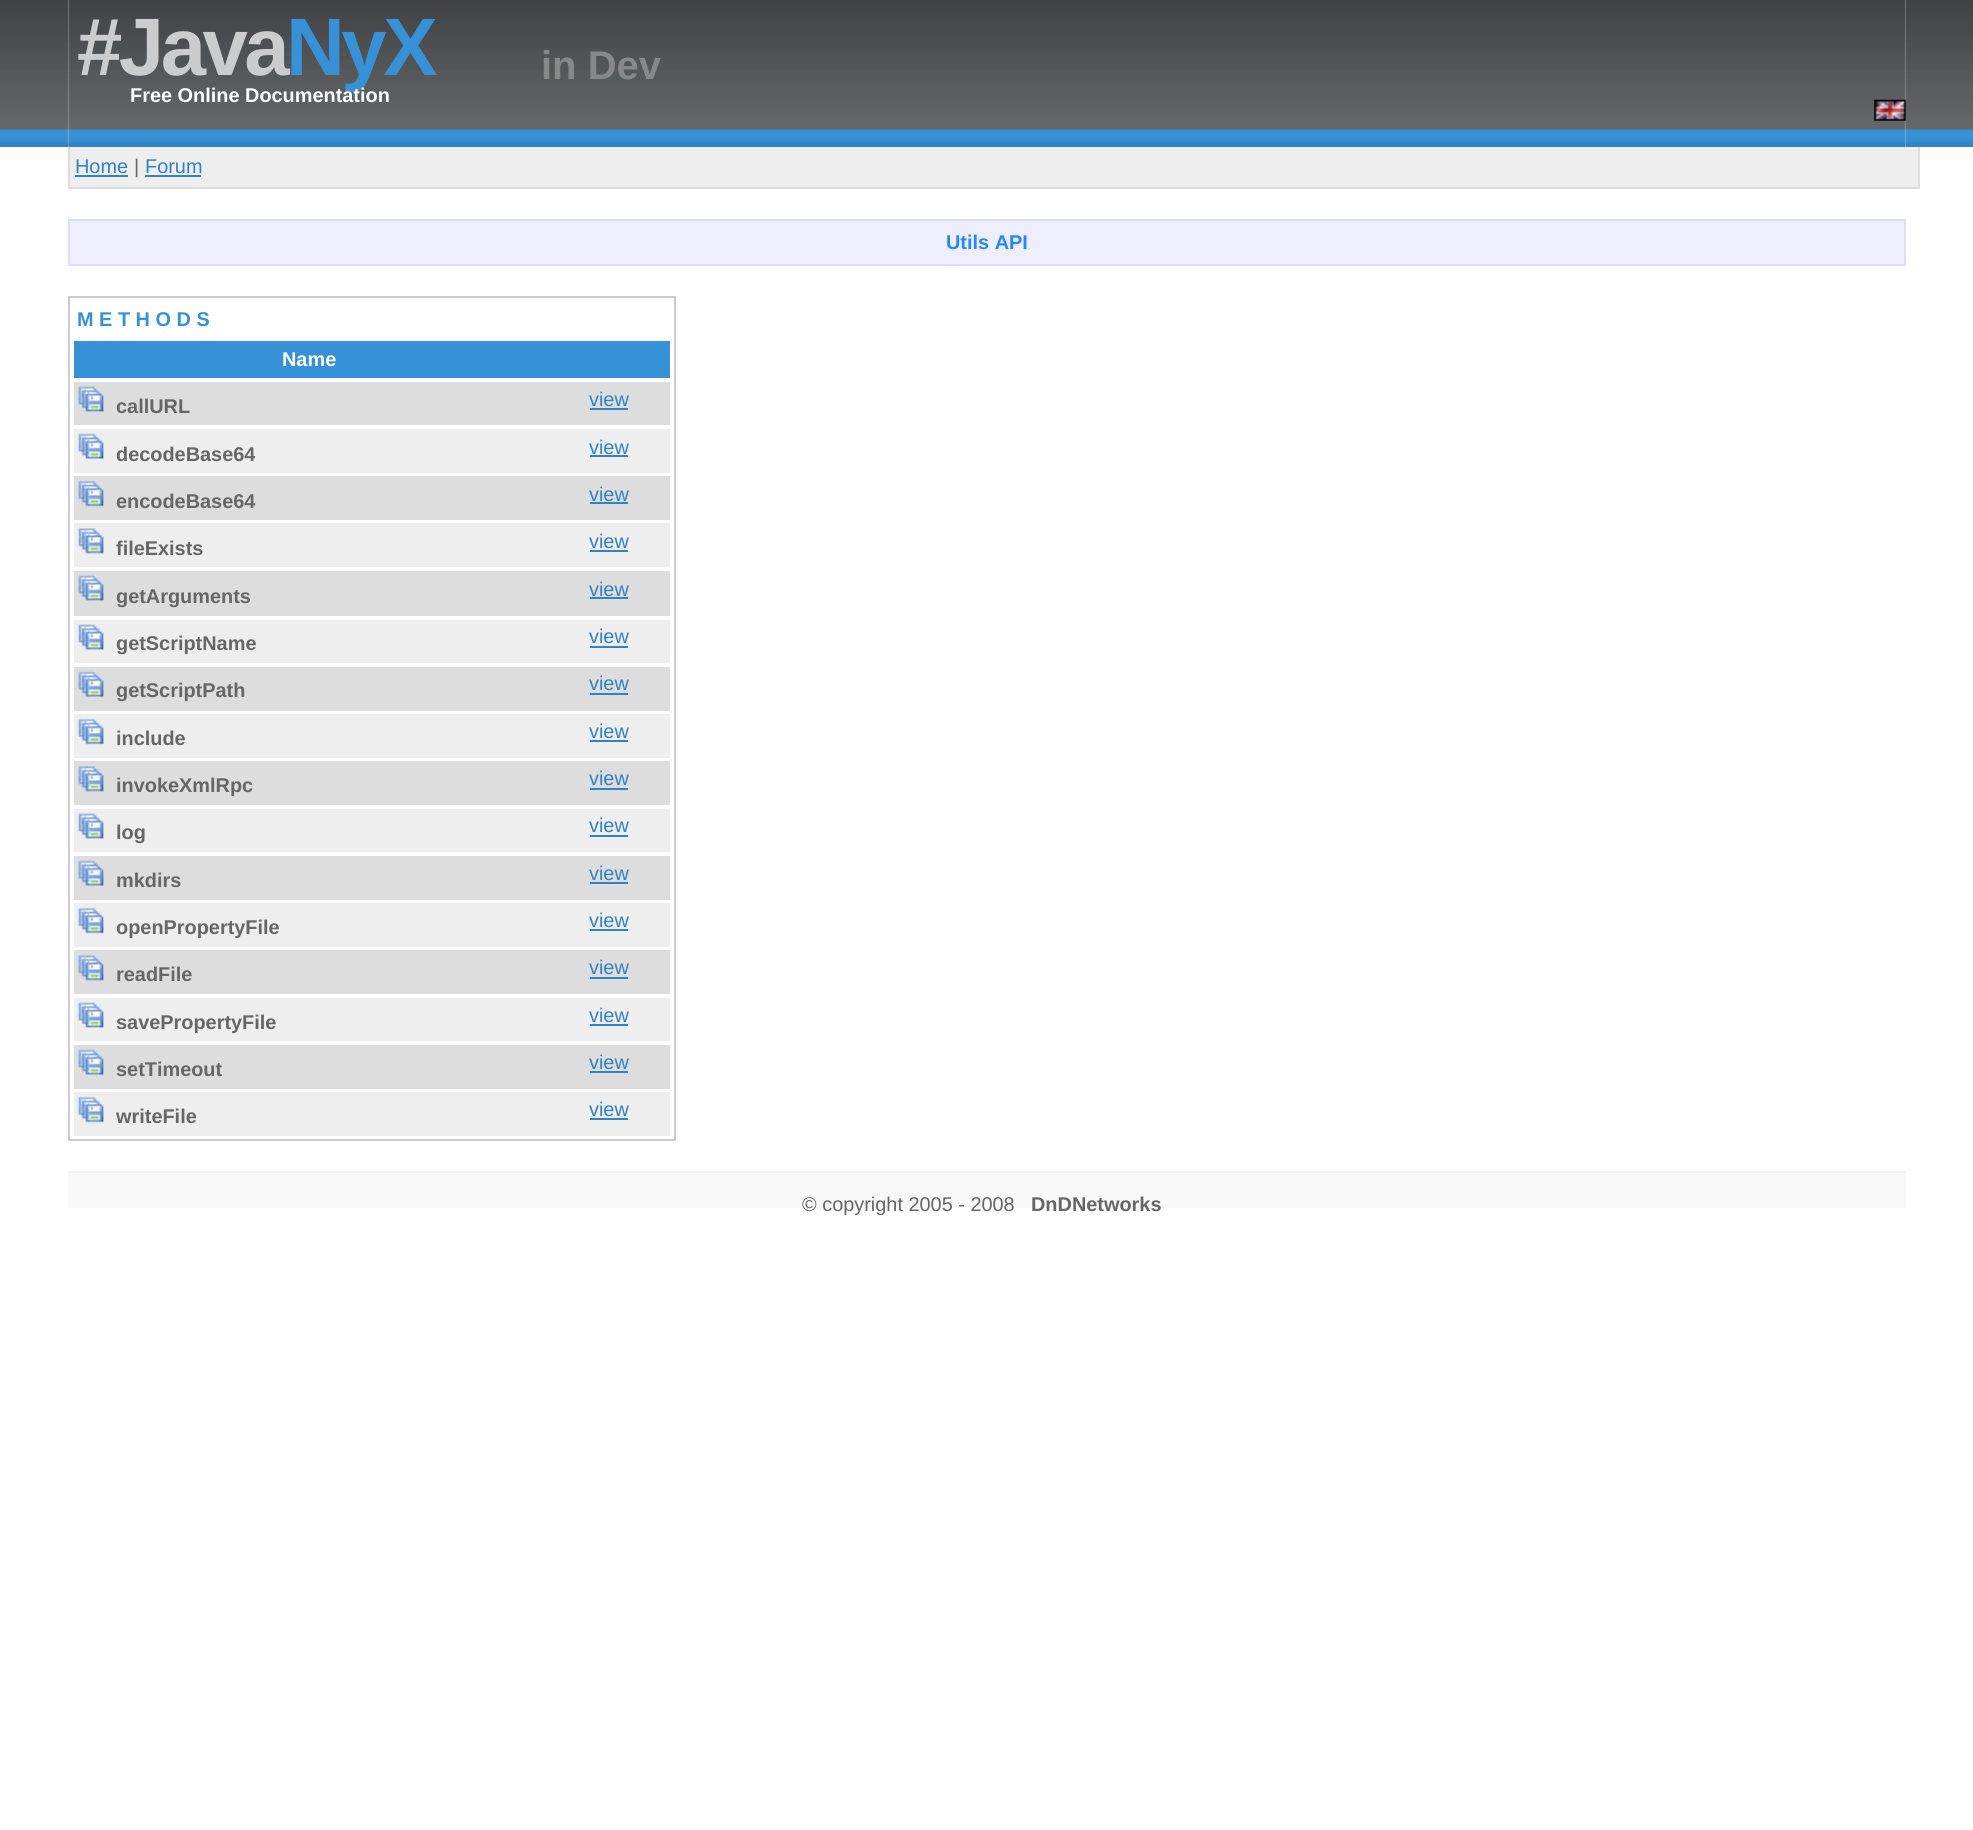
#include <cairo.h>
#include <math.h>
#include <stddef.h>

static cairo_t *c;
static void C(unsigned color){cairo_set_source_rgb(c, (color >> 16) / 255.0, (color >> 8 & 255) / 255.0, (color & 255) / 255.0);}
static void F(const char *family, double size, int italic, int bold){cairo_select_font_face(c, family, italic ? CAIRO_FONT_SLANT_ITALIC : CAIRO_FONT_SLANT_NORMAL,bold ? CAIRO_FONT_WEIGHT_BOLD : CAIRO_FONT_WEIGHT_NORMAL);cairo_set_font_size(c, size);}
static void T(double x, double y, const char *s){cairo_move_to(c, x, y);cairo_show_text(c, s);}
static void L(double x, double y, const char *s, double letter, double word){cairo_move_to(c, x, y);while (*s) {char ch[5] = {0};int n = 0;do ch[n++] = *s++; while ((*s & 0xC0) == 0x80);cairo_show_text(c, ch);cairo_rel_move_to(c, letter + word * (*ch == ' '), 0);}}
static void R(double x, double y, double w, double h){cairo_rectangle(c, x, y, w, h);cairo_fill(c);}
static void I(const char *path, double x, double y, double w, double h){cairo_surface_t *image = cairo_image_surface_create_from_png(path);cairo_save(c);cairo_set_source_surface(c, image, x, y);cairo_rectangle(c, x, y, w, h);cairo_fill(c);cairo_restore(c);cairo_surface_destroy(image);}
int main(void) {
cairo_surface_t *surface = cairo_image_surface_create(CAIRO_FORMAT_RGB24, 1973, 1830);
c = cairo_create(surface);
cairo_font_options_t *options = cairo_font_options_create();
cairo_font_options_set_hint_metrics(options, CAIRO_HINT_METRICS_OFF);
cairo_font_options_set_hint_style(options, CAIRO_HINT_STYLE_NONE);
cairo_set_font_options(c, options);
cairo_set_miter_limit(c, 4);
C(0xffffff);
cairo_paint(c);
I("1.png",0,0,1973,147);
C(0xffffff);
R(68,0,1838,147);
I("2.png",68,0,1838,147);
F("Liberation Sans",81.5,0,1);
C(0xcccccc);
L(77,75,"#Java",-3.5,0);
C(0x3791d7);
L(286,75,"NyX",-3.5,0);
F("Liberation Sans",40,0,1);
C(0x888888);
T(541,79,"in Dev");
F("Liberation Sans",19.9,0,1);
C(0xffffff);
T(130,102,"Free Online Documentation");
I("3.png",1874,99,32,22);
C(0xeeeeee);
R(70,147,1848,40);
C(0xdddddd);
R(1918,147,2,42);
R(68,187,1852,2);
R(68,147,2,42);
F("Liberation Sans",19.9,0,0);
C(0x3182c0);
T(75,173,"Home");
R(75,175,53,2);
C(0x666666);
T(134,173,"|");
C(0x3182c0);
T(145,173,"Forum");
R(145,175,56,2);
C(0xeeeeff);
cairo_rectangle(c,69,220,1836,45);
cairo_fill_preserve(c);
C(0xddddff);
cairo_stroke(c);
F("Liberation Sans",19.9,0,1);
C(0x2288ff);
T(946,249,"Utils API");
cairo_rectangle(c,69,297,606,843);
C(0xcccccc);
cairo_stroke(c);
C(0x3791d7);
T(77,326,"M E T H O D S");
R(74,341,596,37);
C(0xffffff);
T(282,366,"Name");
C(0xdddddd);
R(74,382,596,43);
I("4.png",78,386,26,26);
C(0x666666);
T(116,413,"callURL");
F("Liberation Sans",19.9,0,0);
C(0x3182c0);
T(589,406,"view");
R(590,408,38,2);
C(0xeeeeee);
R(74,429,596,44);
I("5.png",78,433,26,26);
F("Liberation Sans",19.9,0,1);
C(0x666666);
T(116,461,"decodeBase64");
F("Liberation Sans",19.9,0,0);
C(0x3182c0);
T(589,454,"view");
R(590,455,38,2);
C(0xdddddd);
R(74,476,596,44);
I("6.png",78,480,26,27);
F("Liberation Sans",19.9,0,1);
C(0x666666);
T(116,508,"encodeBase64");
F("Liberation Sans",19.9,0,0);
C(0x3182c0);
T(589,501,"view");
R(590,502,38,2);
C(0xeeeeee);
R(74,523,596,44);
I("7.png",78,528,26,26);
F("Liberation Sans",19.9,0,1);
C(0x666666);
T(116,555,"fileExists");
F("Liberation Sans",19.9,0,0);
C(0x3182c0);
T(589,548,"view");
R(590,550,38,2);
C(0xdddddd);
R(74,571,596,45);
I("4.png",78,575,26,26);
F("Liberation Sans",19.9,0,1);
C(0x666666);
T(116,603,"getArguments");
F("Liberation Sans",19.9,0,0);
C(0x3182c0);
T(589,596,"view");
R(590,597,38,2);
C(0xeeeeee);
R(74,620,596,43);
I("8.png",78,624,26,26);
F("Liberation Sans",19.9,0,1);
C(0x666666);
T(116,650,"getScriptName");
F("Liberation Sans",19.9,0,0);
C(0x3182c0);
T(589,643,"view");
R(590,646,38,2);
C(0xdddddd);
R(74,667,596,44);
I("9.png",78,671,26,26);
F("Liberation Sans",19.9,0,1);
C(0x666666);
T(116,697,"getScriptPath");
F("Liberation Sans",19.9,0,0);
C(0x3182c0);
T(589,690,"view");
R(590,693,38,2);
C(0xeeeeee);
R(74,714,596,44);
I("10.png",78,718,26,27);
F("Liberation Sans",19.9,0,1);
C(0x666666);
T(116,745,"include");
F("Liberation Sans",19.9,0,0);
C(0x3182c0);
T(589,738,"view");
R(590,740,38,2);
C(0xdddddd);
R(74,761,596,44);
I("11.png",78,766,26,26);
F("Liberation Sans",19.9,0,1);
C(0x666666);
T(116,792,"invokeXmlRpc");
F("Liberation Sans",19.9,0,0);
C(0x3182c0);
T(589,785,"view");
R(590,788,38,2);
C(0xeeeeee);
R(74,809,596,43);
I("8.png",78,813,26,26);
F("Liberation Sans",19.9,0,1);
C(0x666666);
T(116,839,"log");
F("Liberation Sans",19.9,0,0);
C(0x3182c0);
T(589,832,"view");
R(590,835,38,2);
C(0xdddddd);
R(74,856,596,44);
I("9.png",78,860,26,26);
F("Liberation Sans",19.9,0,1);
C(0x666666);
T(116,887,"mkdirs");
F("Liberation Sans",19.9,0,0);
C(0x3182c0);
T(589,880,"view");
R(590,882,38,2);
C(0xeeeeee);
R(74,903,596,44);
I("10.png",78,907,26,27);
F("Liberation Sans",19.9,0,1);
C(0x666666);
T(116,934,"openPropertyFile");
F("Liberation Sans",19.9,0,0);
C(0x3182c0);
T(589,927,"view");
R(590,929,38,2);
C(0xdddddd);
R(74,950,596,44);
I("11.png",78,955,26,26);
F("Liberation Sans",19.9,0,1);
C(0x666666);
T(116,981,"readFile");
F("Liberation Sans",19.9,0,0);
C(0x3182c0);
T(589,974,"view");
R(590,977,38,2);
C(0xeeeeee);
R(74,998,596,43);
I("8.png",78,1002,26,26);
F("Liberation Sans",19.9,0,1);
C(0x666666);
T(116,1029,"savePropertyFile");
F("Liberation Sans",19.9,0,0);
C(0x3182c0);
T(589,1022,"view");
R(590,1024,38,2);
C(0xdddddd);
R(74,1045,596,44);
I("9.png",78,1049,26,26);
F("Liberation Sans",19.9,0,1);
C(0x666666);
T(116,1076,"setTimeout");
F("Liberation Sans",19.9,0,0);
C(0x3182c0);
T(589,1069,"view");
R(590,1071,38,2);
C(0xeeeeee);
R(74,1092,596,44);
I("10.png",78,1096,26,27);
F("Liberation Sans",19.9,0,1);
C(0x666666);
T(116,1123,"writeFile");
F("Liberation Sans",19.9,0,0);
C(0x3182c0);
T(589,1116,"view");
R(590,1118,38,2);
C(0xf9f8f9);
R(68,1173,1838,35);
C(0xf2f2f2);
R(68,1171,1838,2);
C(0x666666);
T(802,1211,"© copyright 2005 - 2008");
F("Liberation Sans",19.9,0,1);
T(1031,1211,"DnDNetworks");
cairo_surface_write_to_png(surface, "o.png");
cairo_font_options_destroy(options);
cairo_destroy(c);
cairo_surface_destroy(surface);
return 0;
}
